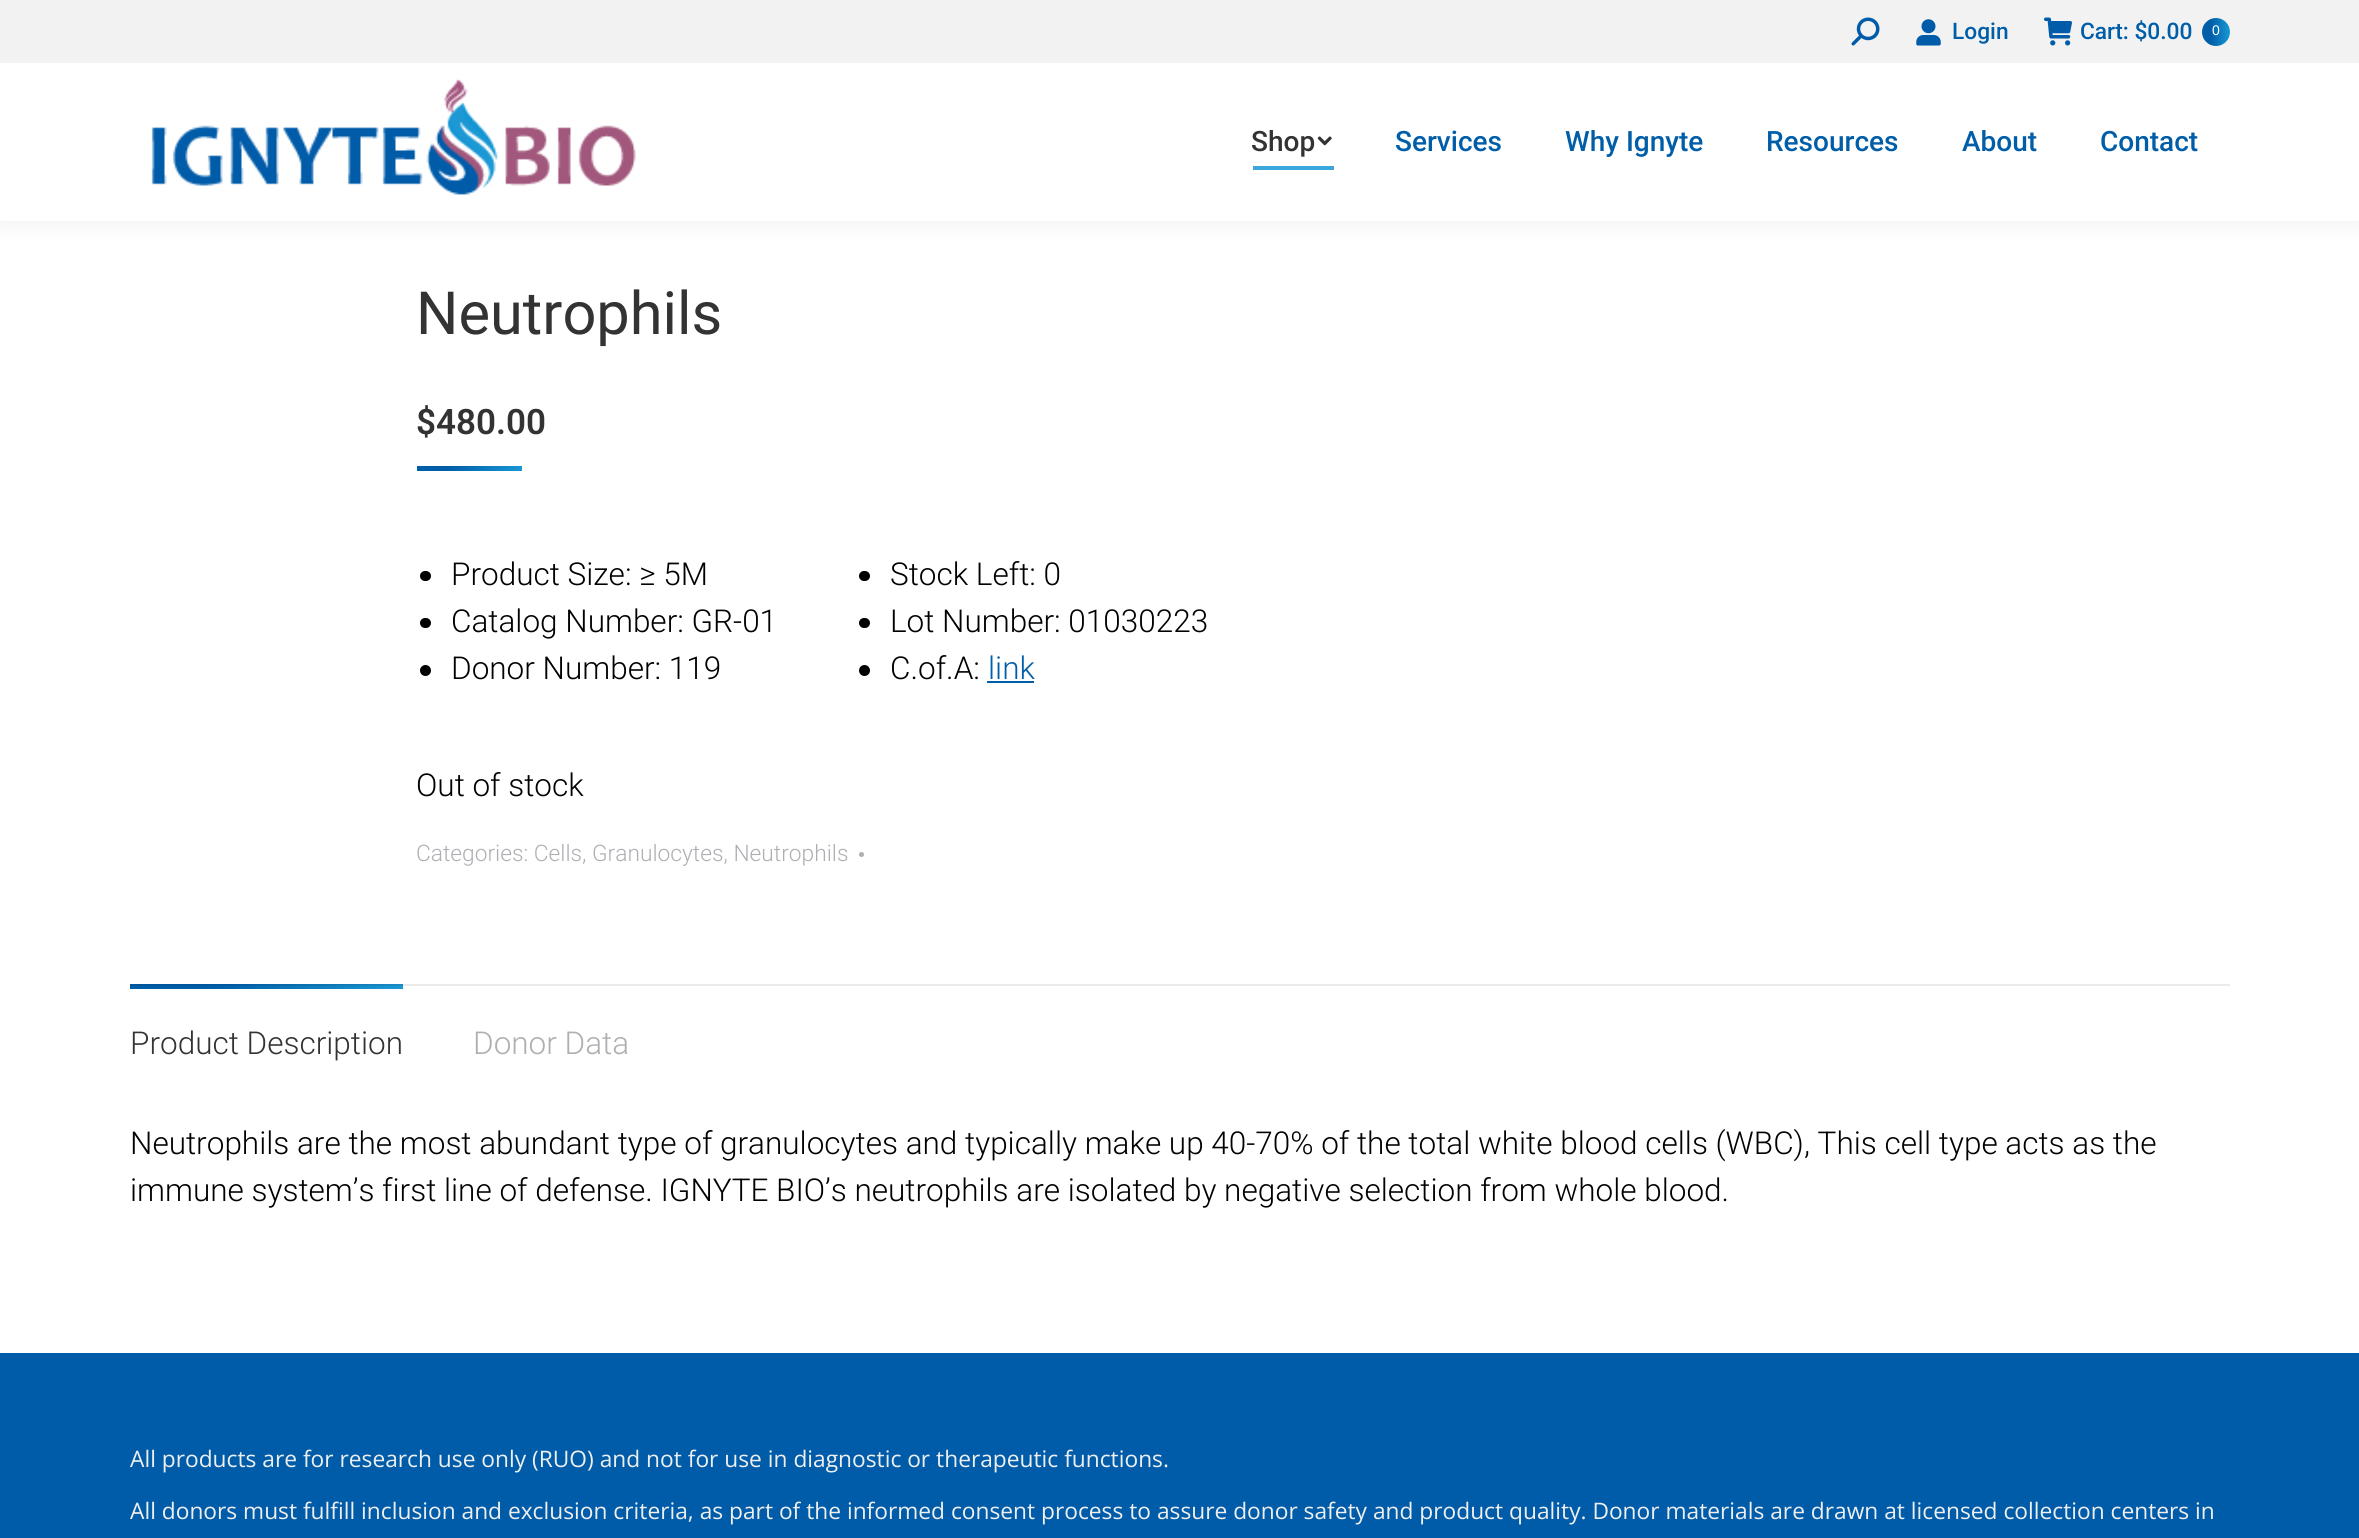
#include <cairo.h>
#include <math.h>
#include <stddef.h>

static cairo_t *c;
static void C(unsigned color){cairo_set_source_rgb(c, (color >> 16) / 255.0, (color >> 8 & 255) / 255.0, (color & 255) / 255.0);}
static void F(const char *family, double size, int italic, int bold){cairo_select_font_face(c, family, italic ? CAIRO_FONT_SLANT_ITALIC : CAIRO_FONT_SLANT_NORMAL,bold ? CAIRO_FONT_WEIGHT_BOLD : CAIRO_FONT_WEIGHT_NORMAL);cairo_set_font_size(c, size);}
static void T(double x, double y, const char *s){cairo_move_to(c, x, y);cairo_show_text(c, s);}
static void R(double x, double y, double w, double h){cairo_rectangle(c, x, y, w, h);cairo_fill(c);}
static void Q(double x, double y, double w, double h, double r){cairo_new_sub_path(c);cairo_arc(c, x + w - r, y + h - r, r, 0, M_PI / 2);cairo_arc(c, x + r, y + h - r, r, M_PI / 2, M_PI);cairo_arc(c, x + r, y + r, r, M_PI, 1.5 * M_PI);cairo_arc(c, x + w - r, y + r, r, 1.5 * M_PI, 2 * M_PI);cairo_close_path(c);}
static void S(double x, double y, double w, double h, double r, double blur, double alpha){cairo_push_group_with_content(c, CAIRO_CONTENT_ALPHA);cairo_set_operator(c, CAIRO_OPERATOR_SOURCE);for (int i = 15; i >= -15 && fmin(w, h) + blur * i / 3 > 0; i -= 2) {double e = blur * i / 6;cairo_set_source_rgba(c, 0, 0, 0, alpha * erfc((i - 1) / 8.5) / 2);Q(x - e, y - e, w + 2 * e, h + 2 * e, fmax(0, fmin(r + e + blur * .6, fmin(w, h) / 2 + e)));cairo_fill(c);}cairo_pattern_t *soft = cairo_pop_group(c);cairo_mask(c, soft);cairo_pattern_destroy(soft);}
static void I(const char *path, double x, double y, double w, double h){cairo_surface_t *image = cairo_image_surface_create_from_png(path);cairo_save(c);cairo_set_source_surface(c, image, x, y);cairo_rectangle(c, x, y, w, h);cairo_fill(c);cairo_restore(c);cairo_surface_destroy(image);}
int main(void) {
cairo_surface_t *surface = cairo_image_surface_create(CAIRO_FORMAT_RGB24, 2359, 1538);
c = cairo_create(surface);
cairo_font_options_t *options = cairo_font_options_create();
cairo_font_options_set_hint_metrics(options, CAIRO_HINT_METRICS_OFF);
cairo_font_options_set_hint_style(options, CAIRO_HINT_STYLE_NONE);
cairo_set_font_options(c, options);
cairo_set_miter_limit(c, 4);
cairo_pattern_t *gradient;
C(0xffffff);
cairo_paint(c);
C(0xebebeb);
R(403,984,1827,2);
C(0x000000);
S(-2,-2,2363,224,0,13,.07);
C(0xffffff);
R(0,63,2359,158);
C(0xf2f2f2);
R(0,0,2359,63);
I("1.png",1851,17,29,29);
I("2.png",1916,19,25,27);
F("Roboto Medium",22.75,0,0);
C(0x005da8);
T(1952,39,"Login");
I("3.png",2044,17,28,29);
T(2080,39,"Cart: $0.00");
gradient = cairo_pattern_create_linear(2202,32,2230,32);
cairo_pattern_add_color_stop_rgba(gradient,.3,0,0.365,0.659,1);
cairo_pattern_add_color_stop_rgba(gradient,1,0.102,0.596,0.835,1);
cairo_set_source(c,gradient);
cairo_pattern_destroy(gradient);
cairo_new_path(c);
cairo_arc(c,2216,32,14,0,2 * M_PI);
cairo_fill(c);
F("Liberation Sans",14,0,0);
C(0xffffff);
T(2212,35,"0");
I("4.png",151,78,485,117);
F("Roboto Medium",28,0,0);
C(0x333333);
T(1251,151,"Shop");
I("5.png",1317,136,15,10);
C(0x3ca7db);
R(1253,166,81,4);
C(0x005da8);
T(1395,151,"Services");
T(1565,151,"Why Ignyte");
T(1766,151,"Resources");
T(1962,151,"About");
T(2100,151,"Contact");
F("Roboto",59.5,0,0);
C(0x333333);
T(416,334,"Neutrophils");
F("Roboto SemiBold",35,0,0);
T(416,434,"$480.00");
gradient = cairo_pattern_create_linear(441,441,497,496);
cairo_pattern_add_color_stop_rgba(gradient,.3,0,0.365,0.659,1);
cairo_pattern_add_color_stop_rgba(gradient,1,0.102,0.596,0.835,1);
cairo_set_source(c,gradient);
cairo_pattern_destroy(gradient);
R(417,466,105,5);
C(0x000000);
Q(420,571,11,10,5);
cairo_fill(c);
F("Roboto Light",31.5,0,0);
T(451,585,"Product Size: ≥ 5M");
Q(420,618,11,10,5);
cairo_fill(c);
T(451,632,"Catalog Number: GR-01");
cairo_new_path(c);
cairo_arc(c,425.5,670.5,5.5,0,2 * M_PI);
cairo_fill(c);
T(451,679,"Donor Number: 119");
Q(859,571,11,10,5);
cairo_fill(c);
T(890,585,"Stock Left: 0");
Q(859,618,11,10,5);
cairo_fill(c);
T(890,632,"Lot Number: 01030223");
cairo_new_path(c);
cairo_arc(c,864.5,670.5,5.5,0,2 * M_PI);
cairo_fill(c);
T(890,679,"C.of.A:");
C(0x005da8);
T(988,679,"link");
R(987,681,47,2);
C(0x000000);
T(416,796,"Out of stock");
F("Roboto Light",22.75,0,0);
C(0xadafb3);
T(416,861,"Categories: Cells, Granulocytes, Neutrophils");
cairo_new_path(c);
cairo_arc(c,861.5,854.5,2.5,0,2 * M_PI);
cairo_fill(c);
gradient = cairo_pattern_create_linear(196,917,336,1056);
cairo_pattern_add_color_stop_rgba(gradient,.3,0,0.365,0.659,1);
cairo_pattern_add_color_stop_rgba(gradient,1,0.102,0.596,0.835,1);
cairo_set_source(c,gradient);
cairo_pattern_destroy(gradient);
R(130,986,273,3);
gradient = cairo_pattern_create_linear(196,917,336,1056);
cairo_pattern_add_color_stop_rgba(gradient,.3,0,0.337,0.608,1);
cairo_pattern_add_color_stop_rgba(gradient,1,0.094,0.549,0.769,1);
cairo_set_source(c,gradient);
cairo_pattern_destroy(gradient);
R(130,984,273,2);
F("Roboto Light",31.5,0,0);
C(0x333333);
T(130,1054,"Product Description");
C(0xadafb3);
T(473,1054,"Donor Data");
C(0x000000);
T(130,1154,"Neutrophils are the most abundant type of granulocytes and typically make up 40-70% of the total white blood cells (WBC), This cell type acts as the");
T(130,1201,"immune system’s first line of defense. IGNYTE BIO’s neutrophils are isolated by negative selection from whole blood.");
C(0x005ca9);
R(0,1353,2359,185);
F("Open Sans",22.75,0,0);
C(0xefefef);
T(130,1467,"All products are for research use only (RUO) and not for use in diagnostic or therapeutic functions.");
T(130,1519,"All donors must fulfill inclusion and exclusion criteria, as part of the informed consent process to assure donor safety and product quality. Donor materials are drawn at licensed collection centers in");
cairo_surface_write_to_png(surface, "o.png");
cairo_font_options_destroy(options);
cairo_destroy(c);
cairo_surface_destroy(surface);
return 0;
}
